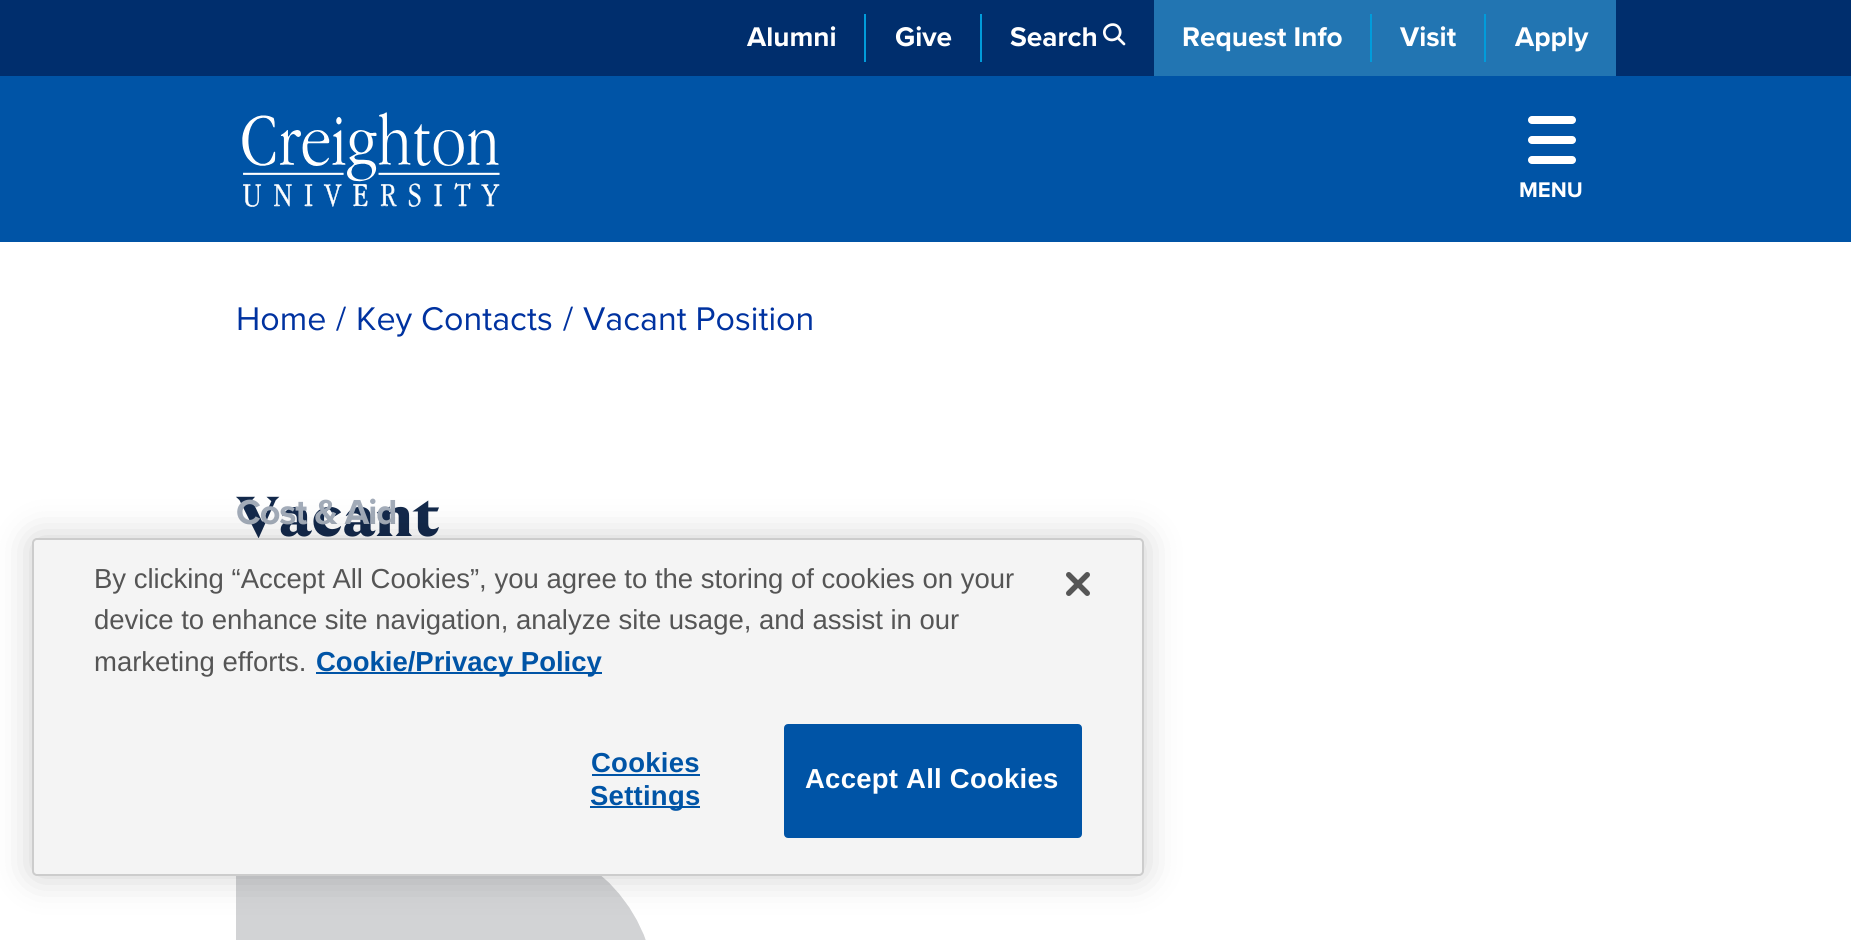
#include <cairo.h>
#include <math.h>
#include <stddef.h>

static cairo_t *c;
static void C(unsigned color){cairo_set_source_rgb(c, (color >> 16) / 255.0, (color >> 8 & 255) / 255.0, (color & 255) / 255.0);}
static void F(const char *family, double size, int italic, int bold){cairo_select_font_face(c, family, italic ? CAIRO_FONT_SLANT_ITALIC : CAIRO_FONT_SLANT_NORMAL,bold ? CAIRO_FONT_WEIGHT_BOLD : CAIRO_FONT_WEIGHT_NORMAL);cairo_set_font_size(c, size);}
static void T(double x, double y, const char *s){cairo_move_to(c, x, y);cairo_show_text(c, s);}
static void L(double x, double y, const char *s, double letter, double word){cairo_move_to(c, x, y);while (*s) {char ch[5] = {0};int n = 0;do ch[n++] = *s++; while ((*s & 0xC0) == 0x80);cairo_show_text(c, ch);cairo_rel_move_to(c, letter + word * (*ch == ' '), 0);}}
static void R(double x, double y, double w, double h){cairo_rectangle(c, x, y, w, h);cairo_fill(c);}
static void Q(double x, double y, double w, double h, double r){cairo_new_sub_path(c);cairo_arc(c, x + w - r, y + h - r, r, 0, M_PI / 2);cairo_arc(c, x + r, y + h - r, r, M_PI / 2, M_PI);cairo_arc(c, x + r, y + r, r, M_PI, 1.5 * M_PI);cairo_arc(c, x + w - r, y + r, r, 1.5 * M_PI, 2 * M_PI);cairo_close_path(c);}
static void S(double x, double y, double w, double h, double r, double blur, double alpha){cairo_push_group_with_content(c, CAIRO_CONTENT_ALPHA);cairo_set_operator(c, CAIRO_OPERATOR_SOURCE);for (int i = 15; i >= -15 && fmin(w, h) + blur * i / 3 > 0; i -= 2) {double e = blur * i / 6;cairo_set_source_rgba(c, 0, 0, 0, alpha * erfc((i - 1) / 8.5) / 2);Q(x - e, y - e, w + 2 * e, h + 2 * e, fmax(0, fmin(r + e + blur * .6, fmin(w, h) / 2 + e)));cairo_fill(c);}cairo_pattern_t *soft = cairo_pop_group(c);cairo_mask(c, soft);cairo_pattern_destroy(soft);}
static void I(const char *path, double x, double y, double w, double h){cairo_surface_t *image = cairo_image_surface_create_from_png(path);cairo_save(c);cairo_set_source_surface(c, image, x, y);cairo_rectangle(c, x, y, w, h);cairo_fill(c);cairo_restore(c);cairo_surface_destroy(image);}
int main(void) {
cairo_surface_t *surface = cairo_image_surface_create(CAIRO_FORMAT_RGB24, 1851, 940);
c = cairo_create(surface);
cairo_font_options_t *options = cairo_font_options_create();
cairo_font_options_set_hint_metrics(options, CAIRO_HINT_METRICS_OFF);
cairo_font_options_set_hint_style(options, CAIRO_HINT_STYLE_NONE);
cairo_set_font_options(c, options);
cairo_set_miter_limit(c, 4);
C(0xffffff);
cairo_paint(c);
C(0x0054a6);
R(0,76,1851,166);
C(0x002e6d);
R(0,0,1851,76);
C(0x019cdb);
R(864,14,2,48);
F("Proxima Nova",28,0,1);
C(0xffffff);
T(747,46,"Alumni");
C(0x019cdb);
R(980,14,2,48);
C(0xffffff);
T(895,46,"Give");
T(1010,46,"Search");
cairo_new_path(c);
cairo_move_to(c,1105,35.5);
cairo_curve_to(c,1109,44.5,1123.5,38.5,1119.5,29);
cairo_curve_to(c,1115.5,20,1101,26,1105,35.5);
cairo_close_path(c);
cairo_move_to(c,1118,38);
cairo_line_to(c,1124,44);
cairo_set_line_width(c,2.7);
cairo_set_line_cap(c,CAIRO_LINE_CAP_ROUND);
cairo_set_line_join(c,CAIRO_LINE_JOIN_ROUND);
cairo_stroke(c);
C(0x2275b2);
R(1154,0,462,76);
C(0x019cdb);
R(1370,14,2,48);
C(0xffffff);
T(1182,46,"Request Info");
C(0x019cdb);
R(1484,14,2,48);
C(0xffffff);
T(1400,46,"Visit");
T(1515,46,"Apply");
I("1.png",242,112,258,95);
Q(1528,136,48,8,4);
cairo_fill(c);
Q(1528,116,48,8,4);
cairo_fill(c);
Q(1528,156,48,8,4);
cairo_fill(c);
F("Proxima Nova",22,0,1);
T(1519,197,"MENU");
F("Proxima Nova",34,0,0);
C(0x0032a0);
T(236,330,"Home");
T(336,330,"/");
T(356,330,"Key Contacts");
T(563,330,"/");
T(583,330,"Vacant Position");
F("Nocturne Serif",56,0,1);
C(0x13294b);
T(236,536,"Vacant");
I("2.png",236,876,410,64);
F("Proxima Nova",36,0,1);
C(0xa3acb9);
L(236,524,"Cost & Aid",-1.1,0);
C(0x000000);
S(32,538,1112,338,5,18,.2);
C(0xf4f4f4);
Q(33,539,1110,336,4);
cairo_fill_preserve(c);
C(0xcccccc);
cairo_set_line_width(c,2);
cairo_set_line_cap(c,CAIRO_LINE_CAP_BUTT);
cairo_set_line_join(c,CAIRO_LINE_JOIN_MITER);
cairo_stroke(c);
F("Liberation Sans",27.5,0,0);
C(0x555555);
T(94,588,"By clicking “Accept All Cookies”, you agree to the storing of cookies on your");
T(94,629,"device to enhance site navigation, analyze site usage, and assist in our");
T(94,671,"marketing efforts.");
C(0x0054a6);
R(316,672,286,2);
F("Liberation Sans",27.5,0,1);
T(316,671,"Cookie/Privacy Policy");
I("3.png",1066,572,24,24);
L(591,772,"Cookies",.25,0);
R(592,774,108,2);
R(590,806,110,2);
L(590,805,"Settings",.25,0);
Q(785,725,296,112,3);
cairo_fill_preserve(c);
cairo_stroke(c);
C(0xffffff);
L(805,788,"Accept All Cookies",.25,0);
cairo_surface_write_to_png(surface, "o.png");
cairo_font_options_destroy(options);
cairo_destroy(c);
cairo_surface_destroy(surface);
return 0;
}
